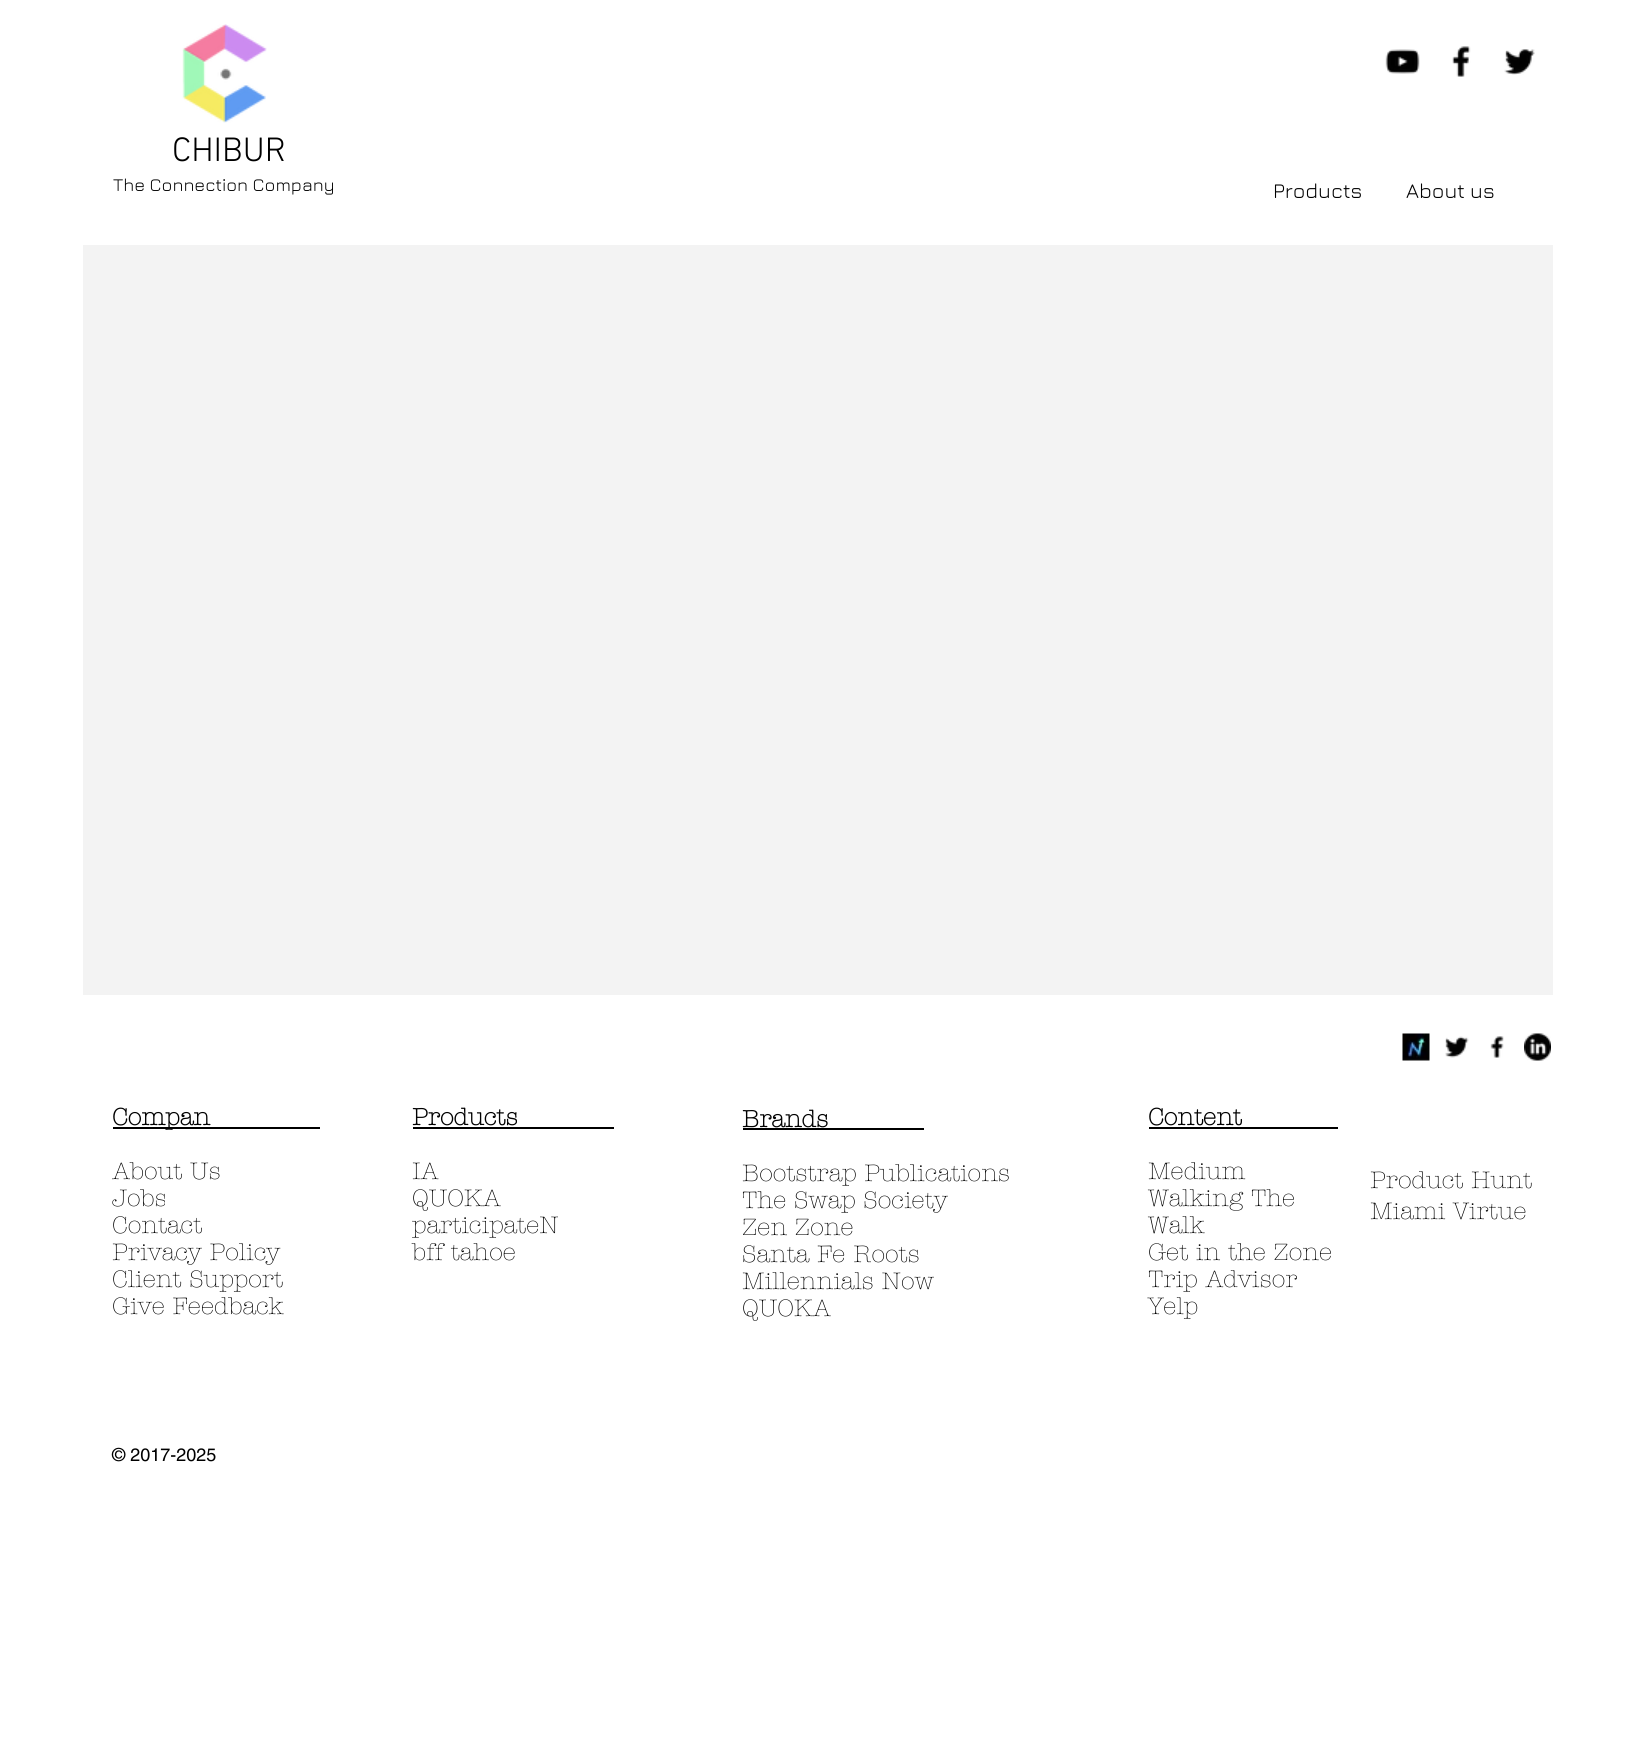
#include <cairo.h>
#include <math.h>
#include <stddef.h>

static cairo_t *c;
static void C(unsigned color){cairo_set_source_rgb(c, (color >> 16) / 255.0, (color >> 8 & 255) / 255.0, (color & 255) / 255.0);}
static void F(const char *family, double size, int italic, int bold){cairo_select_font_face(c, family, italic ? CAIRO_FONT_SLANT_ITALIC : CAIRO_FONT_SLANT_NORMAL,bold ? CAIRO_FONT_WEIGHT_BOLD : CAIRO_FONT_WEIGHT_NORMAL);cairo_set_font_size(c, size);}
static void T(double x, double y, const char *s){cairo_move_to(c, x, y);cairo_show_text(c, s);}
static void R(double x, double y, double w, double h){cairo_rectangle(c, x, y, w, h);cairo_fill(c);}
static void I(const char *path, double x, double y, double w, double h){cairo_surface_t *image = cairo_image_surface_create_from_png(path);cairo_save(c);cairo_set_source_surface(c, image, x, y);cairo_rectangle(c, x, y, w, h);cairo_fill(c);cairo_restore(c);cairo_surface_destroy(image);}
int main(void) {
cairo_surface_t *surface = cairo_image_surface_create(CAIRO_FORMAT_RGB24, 1633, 1741);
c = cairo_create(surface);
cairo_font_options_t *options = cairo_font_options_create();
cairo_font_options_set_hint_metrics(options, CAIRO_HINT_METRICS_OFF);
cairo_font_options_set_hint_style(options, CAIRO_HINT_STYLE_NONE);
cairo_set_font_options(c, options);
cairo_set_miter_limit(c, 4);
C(0xffffff);
cairo_paint(c);
I("1.png",1385,49,35,25);
I("2.png",1452,46,19,31);
I("3.png",1504,49,31,26);
I("4.png",182,24,85,99);
F("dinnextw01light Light",34.5,0,0);
C(0x000000);
T(172,161,"CHIBUR");
F("Jura",18,0,0);
T(113,191,"The Connection Company");
F("Jura",21,0,0);
T(1273,198,"Products");
T(1406,198,"About us");
C(0xf3f3f3);
R(83,245,1470,750);
I("5.png",1402,1033,28,28);
I("6.png",1445,1036,24,22);
I("7.png",1490,1036,14,22);
I("8.png",1524,1033,27,28);
C(0x000000);
R(113,1127,207,2);
F("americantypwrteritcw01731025",24,0,1);
T(112,1125,"Compan");
F("americantypwrteritcw01731025 Light",24,0,0);
T(112,1179,"About Us");
T(112,1206,"Jobs");
T(112,1233,"Contact");
T(112,1260,"Privacy Policy");
T(112,1287,"Client Support");
T(112,1314,"Give Feedback");
F("americantypwrteritcw01731025",24,0,1);
T(412,1125,"Products");
R(413,1127,201,2);
F("americantypwrteritcw01731025 Light",24,0,0);
T(412,1179,"IA");
T(412,1206,"QUOKA");
T(412,1233,"participateN");
T(412,1260,"bff tahoe");
F("americantypwrteritcw01731025",24,0,1);
T(742,1127,"Brands");
R(743,1128,181,2);
F("americantypwrteritcw01731025 Light",24,0,0);
T(742,1181,"Bootstrap Publications");
T(742,1208,"The Swap Society");
T(742,1235,"Zen Zone");
T(742,1262,"Santa Fe Roots");
T(742,1289,"Millennials Now");
T(742,1316,"QUOKA");
F("americantypwrteritcw01731025",24,0,1);
T(1148,1125,"Content");
R(1149,1127,189,2);
F("americantypwrteritcw01731025 Light",24,0,0);
T(1148,1179,"Medium");
T(1148,1206,"Walking The");
T(1148,1233,"Walk");
T(1148,1260,"Get in the Zone");
T(1148,1287,"Trip Advisor");
T(1148,1314,"Yelp");
T(1370,1188,"Product Hunt");
T(1370,1219,"Miami Virtue");
F("helvetica",18,0,0);
T(112,1461,"© 2017-2025");
cairo_surface_write_to_png(surface, "o.png");
cairo_font_options_destroy(options);
cairo_destroy(c);
cairo_surface_destroy(surface);
return 0;
}
